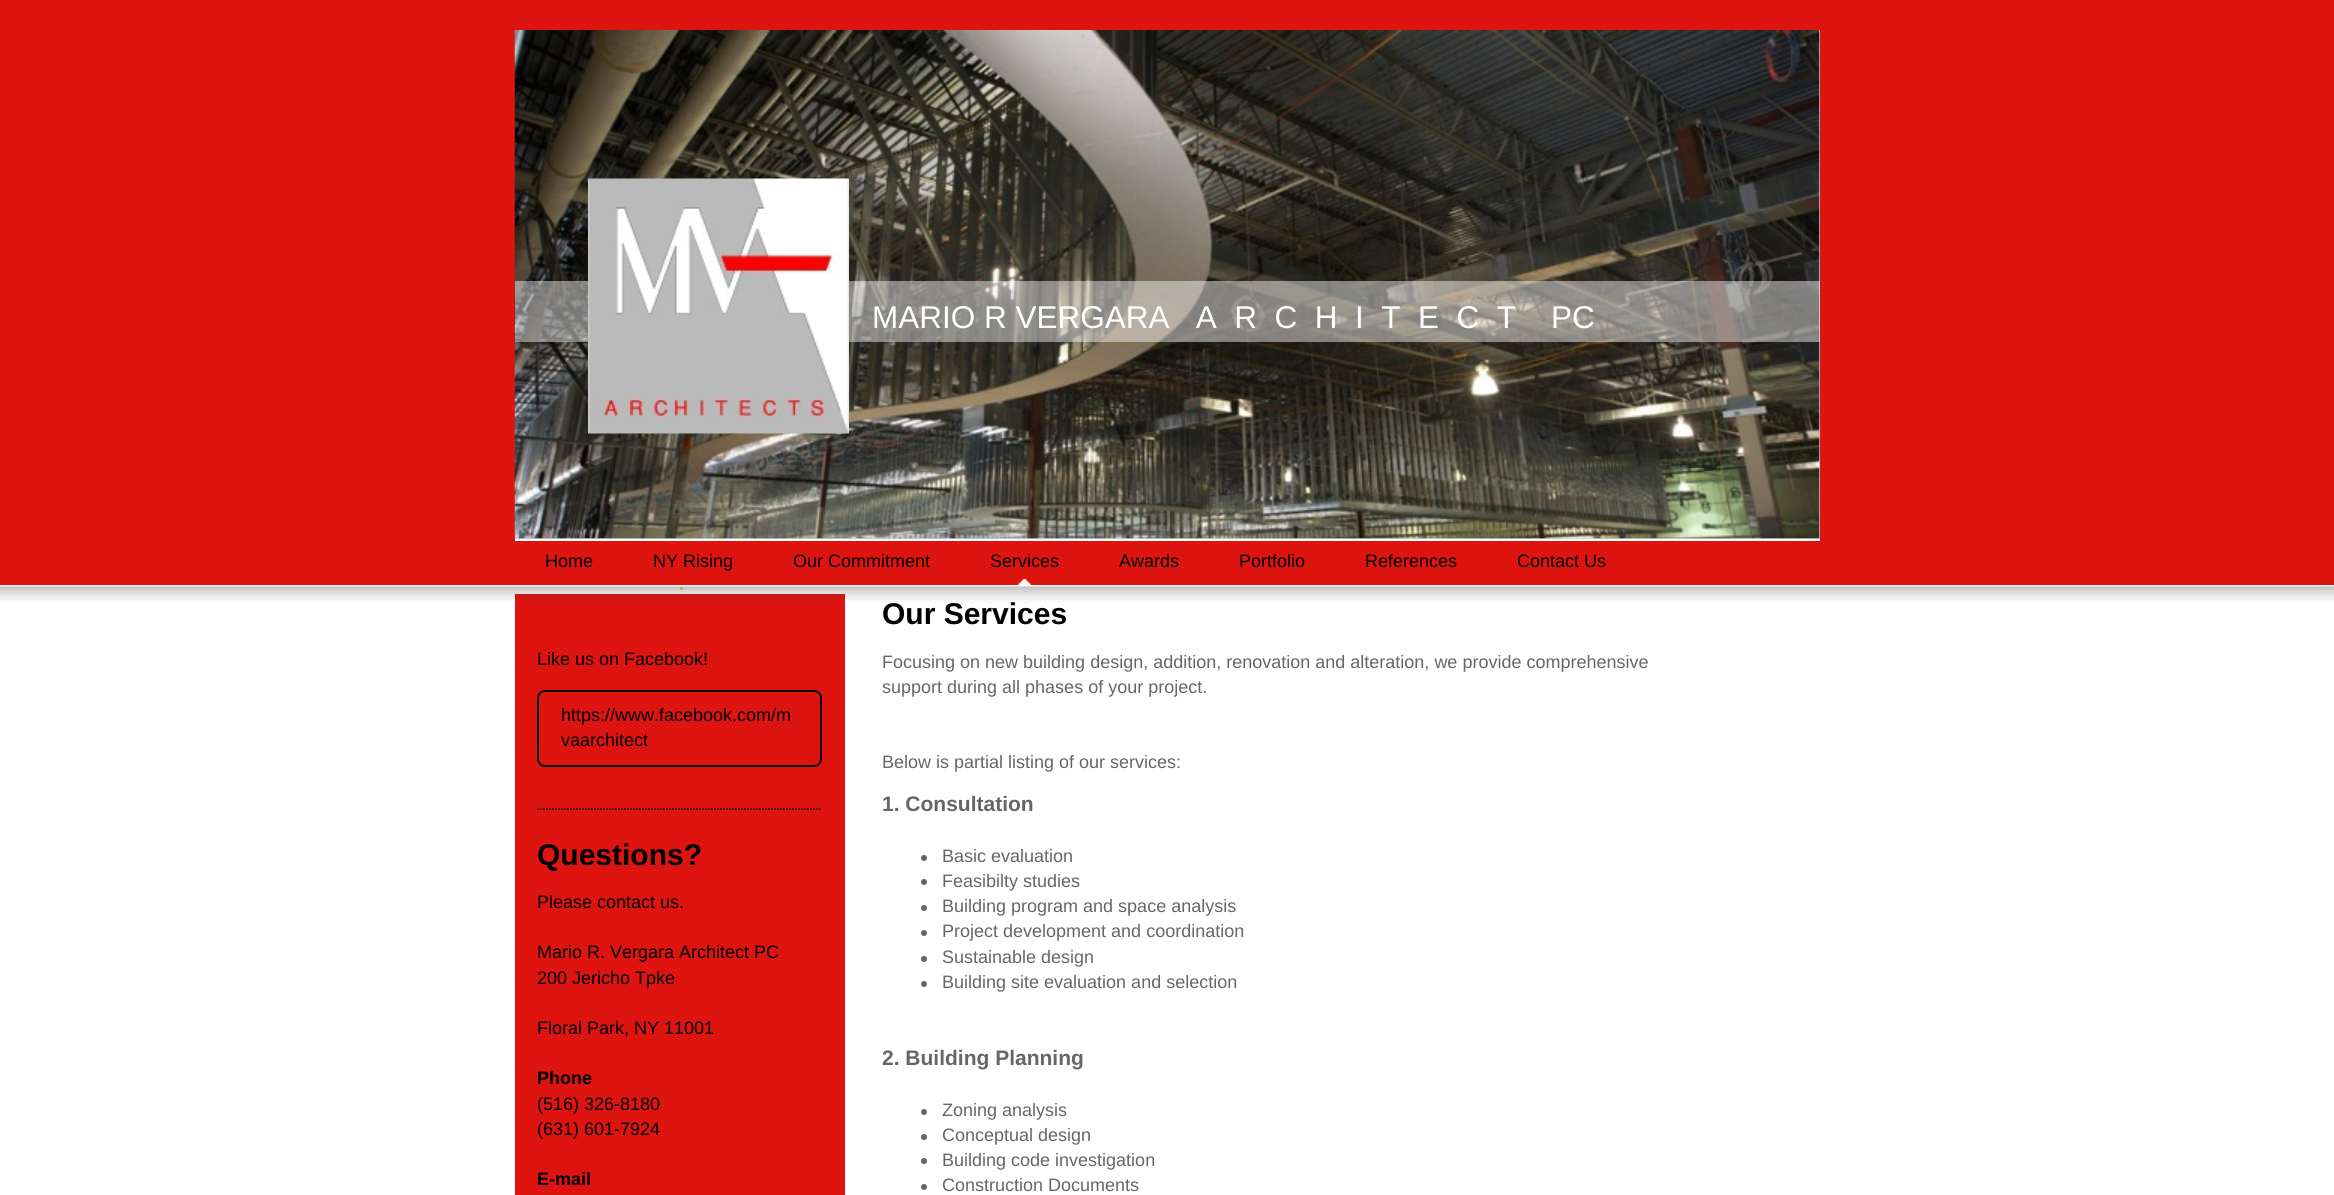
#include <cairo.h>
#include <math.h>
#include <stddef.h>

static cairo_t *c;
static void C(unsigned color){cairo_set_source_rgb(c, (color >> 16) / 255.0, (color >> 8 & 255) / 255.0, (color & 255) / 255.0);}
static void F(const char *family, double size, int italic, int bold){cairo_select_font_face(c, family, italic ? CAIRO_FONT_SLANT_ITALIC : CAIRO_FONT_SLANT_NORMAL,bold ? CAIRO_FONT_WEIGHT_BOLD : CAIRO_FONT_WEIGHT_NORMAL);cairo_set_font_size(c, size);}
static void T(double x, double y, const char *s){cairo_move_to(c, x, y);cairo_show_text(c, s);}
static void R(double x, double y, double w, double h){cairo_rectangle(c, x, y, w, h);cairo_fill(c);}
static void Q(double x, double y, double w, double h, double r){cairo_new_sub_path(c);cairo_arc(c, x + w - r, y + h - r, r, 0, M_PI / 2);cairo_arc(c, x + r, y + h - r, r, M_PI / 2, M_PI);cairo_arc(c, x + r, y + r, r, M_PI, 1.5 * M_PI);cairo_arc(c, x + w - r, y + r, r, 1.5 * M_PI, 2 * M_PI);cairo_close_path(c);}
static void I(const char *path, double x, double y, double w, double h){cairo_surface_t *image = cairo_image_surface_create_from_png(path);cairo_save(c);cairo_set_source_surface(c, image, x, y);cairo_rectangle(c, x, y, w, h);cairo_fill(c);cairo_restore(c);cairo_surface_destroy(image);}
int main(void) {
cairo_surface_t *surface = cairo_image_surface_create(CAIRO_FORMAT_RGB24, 2334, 1195);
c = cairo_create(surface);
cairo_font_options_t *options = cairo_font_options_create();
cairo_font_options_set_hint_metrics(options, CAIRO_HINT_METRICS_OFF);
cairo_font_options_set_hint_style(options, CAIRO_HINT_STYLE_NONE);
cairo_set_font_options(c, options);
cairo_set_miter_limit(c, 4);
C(0xffffff);
cairo_paint(c);
C(0xde1411);
R(0,0,2334,585);
C(0xffffff);
R(515,539,1305,2);
C(0xcccccc);
R(515,30,1305,509);
I("1.png",514,30,1306,509);
cairo_set_source_rgba(c,1,1,1,0.45);
R(515,281,1305,61);
I("2.png",588,178,261,256);
F("Liberation Sans",31.5,0,0);
C(0xffffff);
T(872,328,"MARIO R VERGARA   A  R  C  H  I  T  E  C  T    PC");
F("Liberation Sans",18,0,0);
C(0x000000);
T(545,567,"Home");
T(653,567,"NY Rising");
T(793,567,"Our Commitment");
I("3.png",1018,579,13,6);
T(990,567,"Services");
T(1119,567,"Awards");
T(1239,567,"Portfolio");
T(1365,567,"References");
T(1517,567,"Contact Us");
C(0xffdd57);
R(680,587,3,3);
C(0xde1411);
R(515,594,330,601);
F("Liberation Sans",30,0,1);
C(0x000000);
T(882,624,"Our Services");
I("4.png",0,586,2334,17);
F("Liberation Sans",18,0,0);
T(537,665,"Like us on Facebook!");
Q(538,691,283,75,7);
cairo_stroke(c);
T(561,721,"https://www.facebook.com/m");
T(561,746,"vaarchitect");
cairo_new_path(c);
cairo_move_to(c,537,809);
cairo_line_to(c,822,809);
cairo_set_line_width(c,1.5);
cairo_set_dash(c,(double[]){1.5,1.5},2,0);
cairo_stroke(c);
F("Liberation Sans",30,0,1);
T(537,865,"Questions?");
F("Liberation Sans",18,0,0);
T(537,908,"Please contact us.");
T(537,958,"Mario R. Vergara Architect PC");
T(537,984,"200 Jericho Tpke");
T(537,1034,"Floral Park, NY 11001");
F("Liberation Sans",18,0,1);
T(537,1084,"Phone");
F("Liberation Sans",18,0,0);
T(537,1110,"(516) 326-8180");
T(537,1135,"(631) 601-7924");
F("Liberation Sans",18,0,1);
T(537,1185,"E-mail");
F("Liberation Sans",18,0,0);
C(0x666666);
T(882,668,"Focusing on new building design, addition, renovation and alteration, we provide comprehensive");
T(882,693,"support during all phases of your project.");
T(882,768,"Below is partial listing of our services:");
F("Liberation Sans",21,0,1);
T(882,811,"1. Consultation");
cairo_new_path(c);
cairo_arc(c,924,858,3,0,2 * M_PI);
cairo_fill(c);
F("Liberation Sans",18,0,0);
T(942,862,"Basic evaluation");
cairo_new_path(c);
cairo_arc(c,924,882,3,0,2 * M_PI);
cairo_fill(c);
T(942,887,"Feasibilty studies");
cairo_new_path(c);
cairo_arc(c,924,908,3,0,2 * M_PI);
cairo_fill(c);
T(942,912,"Building program and space analysis");
cairo_new_path(c);
cairo_arc(c,924,933,3,0,2 * M_PI);
cairo_fill(c);
T(942,937,"Project development and coordination");
cairo_new_path(c);
cairo_arc(c,924,959,3,0,2 * M_PI);
cairo_fill(c);
T(942,963,"Sustainable design");
cairo_new_path(c);
cairo_arc(c,924,984,3,0,2 * M_PI);
cairo_fill(c);
T(942,988,"Building site evaluation and selection");
F("Liberation Sans",21,0,1);
T(882,1065,"2. Building Planning");
cairo_new_path(c);
cairo_arc(c,924,1112,3,0,2 * M_PI);
cairo_fill(c);
F("Liberation Sans",18,0,0);
T(942,1116,"Zoning analysis");
cairo_new_path(c);
cairo_arc(c,924,1137,3,0,2 * M_PI);
cairo_fill(c);
T(942,1141,"Conceptual design");
cairo_new_path(c);
cairo_arc(c,924,1161,3,0,2 * M_PI);
cairo_fill(c);
T(942,1166,"Building code investigation");
cairo_new_path(c);
cairo_arc(c,924,1187,3,0,2 * M_PI);
cairo_fill(c);
T(942,1191,"Construction Documents");
cairo_surface_write_to_png(surface, "o.png");
cairo_font_options_destroy(options);
cairo_destroy(c);
cairo_surface_destroy(surface);
return 0;
}
